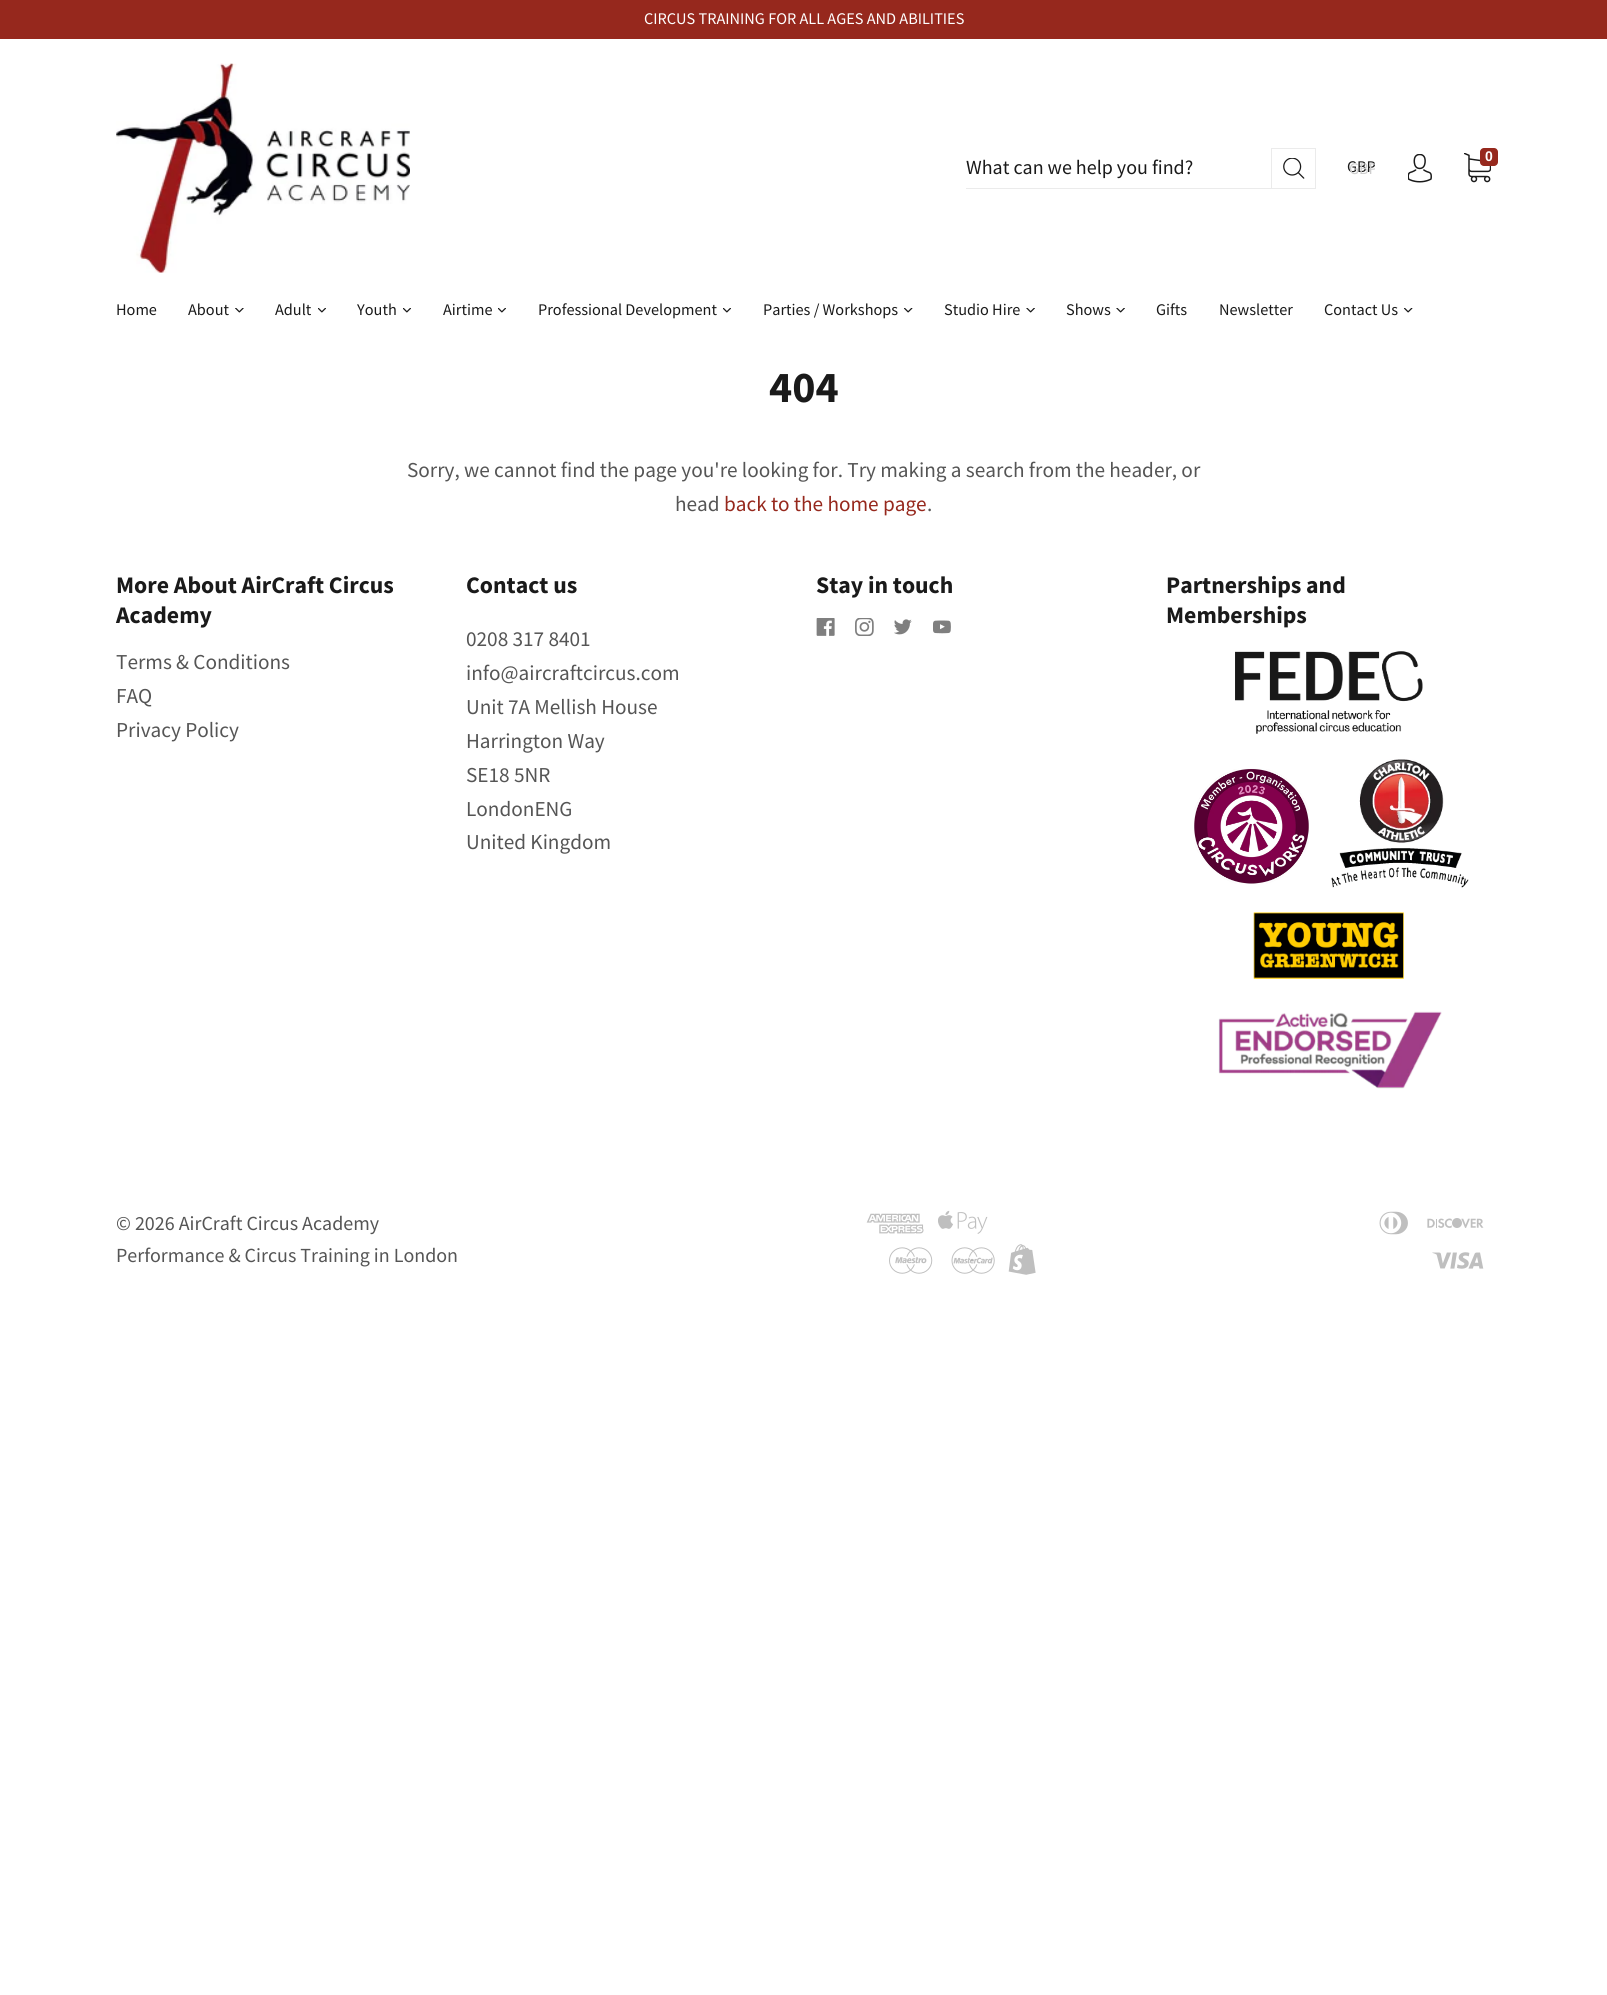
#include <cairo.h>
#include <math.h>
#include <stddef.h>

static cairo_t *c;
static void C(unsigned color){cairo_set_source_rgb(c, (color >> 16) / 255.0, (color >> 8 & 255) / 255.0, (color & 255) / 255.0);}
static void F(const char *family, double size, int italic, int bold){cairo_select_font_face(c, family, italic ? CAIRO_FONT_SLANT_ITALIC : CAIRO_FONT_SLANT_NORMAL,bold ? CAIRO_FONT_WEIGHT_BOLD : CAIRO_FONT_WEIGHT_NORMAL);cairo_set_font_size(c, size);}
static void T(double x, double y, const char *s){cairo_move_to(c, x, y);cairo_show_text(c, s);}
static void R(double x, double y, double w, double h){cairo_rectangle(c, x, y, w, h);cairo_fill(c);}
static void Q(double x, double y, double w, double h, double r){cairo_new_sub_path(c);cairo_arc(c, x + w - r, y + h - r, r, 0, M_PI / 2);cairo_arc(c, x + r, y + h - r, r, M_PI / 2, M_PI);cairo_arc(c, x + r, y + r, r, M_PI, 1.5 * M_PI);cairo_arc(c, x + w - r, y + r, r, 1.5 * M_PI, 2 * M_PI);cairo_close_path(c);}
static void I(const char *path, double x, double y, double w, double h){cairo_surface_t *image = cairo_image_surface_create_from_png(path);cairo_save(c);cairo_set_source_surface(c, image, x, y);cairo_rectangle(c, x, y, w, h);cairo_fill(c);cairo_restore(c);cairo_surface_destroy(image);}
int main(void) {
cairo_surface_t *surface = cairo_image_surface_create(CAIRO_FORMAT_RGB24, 1607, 1995);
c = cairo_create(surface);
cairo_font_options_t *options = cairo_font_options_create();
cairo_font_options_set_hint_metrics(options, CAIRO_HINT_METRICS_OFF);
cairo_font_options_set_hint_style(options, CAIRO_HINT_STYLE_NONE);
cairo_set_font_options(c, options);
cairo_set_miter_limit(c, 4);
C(0xffffff);
cairo_paint(c);
C(0x96281d);
R(0,0,1607,39);
F("Source Sans Pro",16.25,0,0);
C(0xffffff);
T(644,24,"CIRCUS TRAINING FOR ALL AGES AND ABILITIES");
I("1.png",116,63,294,210);
C(0xebebeb);
R(966,188,350,1);
F("Source Sans Pro",20,0,0);
C(0x1a1a1a);
T(966,174,"What can we help you find?");
C(0xebebeb);
R(1271,148,45,1);
R(1315,148,1,41);
R(1271,148,1,41);
I("2.png",1283,158,22,21);
F("Source Sans Pro",16.25,0,0);
C(0x1a1a1a);
T(1347,172,"GBP");
cairo_save(c);
cairo_rectangle(c,1349,156,26,25);
cairo_clip(c);
C(0xcecece);
T(1349,174,"GBP");
cairo_restore(c);
I("3.png",1408,154,24,29);
I("4.png",1464,153,27,30);
C(0x96281d);
Q(1480,148,18,18,4);
cairo_fill(c);
F("Liberation Sans",14,0,1);
C(0xffffff);
T(1485,161,"0");
F("Source Sans Pro",16.25,0,0);
C(0x1a1a1a);
T(116,315,"Home");
T(188,315,"About");
I("5.png",235,308,9,5);
T(275,315,"Adult");
I("6.png",318,308,8,5);
T(357,315,"Youth");
I("6.png",403,308,8,5);
T(443,315,"Airtime");
I("6.png",498,308,8,5);
T(538,315,"Professional Development");
I("6.png",723,308,8,5);
T(763,315,"Parties / Workshops");
I("7.png",904,308,9,5);
T(944,315,"Studio Hire");
I("8.png",1026,308,9,5);
T(1066,315,"Shows");
I("8.png",1116,308,9,5);
T(1156,315,"Gifts");
T(1219,315,"Newsletter");
T(1324,315,"Contact Us");
I("7.png",1404,308,9,5);
F("Source Sans Pro",44,0,1);
T(769,402,"404");
F("Source Sans Pro",21.25,0,0);
C(0x555555);
T(407,477,"Sorry, we cannot find the page you're looking for. Try making a search from the header, or");
T(675,511,"head");
C(0x96281d);
T(724,511,"back to the home page");
C(0x555555);
T(927,511,".");
F("Source Sans Pro",23.75,0,1);
C(0x1a1a1a);
T(116,593,"More About AirCraft Circus");
T(116,623,"Academy");
F("Source Sans Pro",21.25,0,0);
C(0x555555);
T(116,669,"Terms & Conditions");
T(116,703,"FAQ");
T(116,737,"Privacy Policy");
F("Source Sans Pro",23.75,0,1);
C(0x1a1a1a);
T(466,593,"Contact us");
F("Source Sans Pro",21.25,0,0);
C(0x555555);
T(466,646,"0208 317 8401");
T(466,680,"info@aircraftcircus.com");
T(466,714,"Unit 7A Mellish House");
T(466,748,"Harrington Way");
T(466,782,"SE18 5NR");
T(466,816,"LondonENG");
T(466,849,"United Kingdom");
F("Source Sans Pro",23.75,0,1);
C(0x1a1a1a);
T(816,593,"Stay in touch");
I("9.png",816,618,19,18);
I("10.png",855,618,19,18);
I("11.png",894,619,18,16);
I("12.png",933,620,18,14);
T(1166,593,"Partnerships and");
T(1166,623,"Memberships");
I("13.png",1235,651,188,83);
I("14.png",1194,768,115,116);
I("15.png",1331,759,138,129);
I("16.png",1253,912,151,67);
I("17.png",1218,1011,224,78);
F("Source Sans Pro",20,0,0);
C(0x555555);
T(116,1230,"© 2026 AirCraft Circus Academy");
T(116,1262,"Performance & Circus Training in London");
I("18.png",866,1213,58,21);
I("19.png",938,1210,50,24);
I("20.png",1379,1211,29,24);
I("21.png",1427,1218,57,10);
I("22.png",889,1247,44,27);
I("23.png",951,1247,44,27);
I("24.png",1008,1244,28,31);
I("25.png",1432,1252,52,17);
cairo_surface_write_to_png(surface, "o.png");
cairo_font_options_destroy(options);
cairo_destroy(c);
cairo_surface_destroy(surface);
return 0;
}
